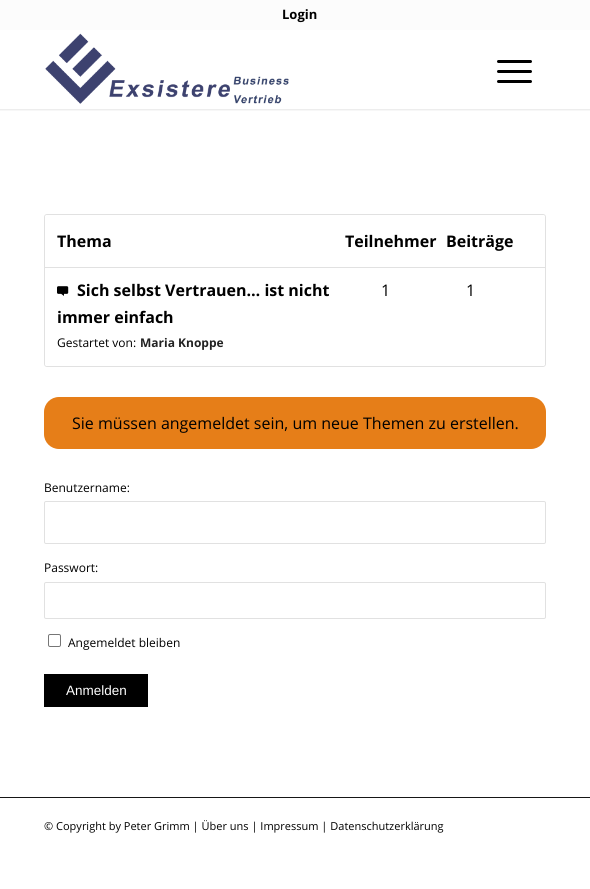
#include <cairo.h>
#include <math.h>
#include <stddef.h>

static cairo_t *c;
static void C(unsigned color){cairo_set_source_rgb(c, (color >> 16) / 255.0, (color >> 8 & 255) / 255.0, (color & 255) / 255.0);}
static void F(const char *family, double size, int italic, int bold){cairo_select_font_face(c, family, italic ? CAIRO_FONT_SLANT_ITALIC : CAIRO_FONT_SLANT_NORMAL,bold ? CAIRO_FONT_WEIGHT_BOLD : CAIRO_FONT_WEIGHT_NORMAL);cairo_set_font_size(c, size);}
static void T(double x, double y, const char *s){cairo_move_to(c, x, y);cairo_show_text(c, s);}
static void R(double x, double y, double w, double h){cairo_rectangle(c, x, y, w, h);cairo_fill(c);}
static void Q(double x, double y, double w, double h, double r){cairo_new_sub_path(c);cairo_arc(c, x + w - r, y + h - r, r, 0, M_PI / 2);cairo_arc(c, x + r, y + h - r, r, M_PI / 2, M_PI);cairo_arc(c, x + r, y + r, r, M_PI, 1.5 * M_PI);cairo_arc(c, x + w - r, y + r, r, 1.5 * M_PI, 2 * M_PI);cairo_close_path(c);}
static void S(double x, double y, double w, double h, double r, double blur, double alpha){cairo_push_group_with_content(c, CAIRO_CONTENT_ALPHA);cairo_set_operator(c, CAIRO_OPERATOR_SOURCE);for (int i = 15; i >= -15 && fmin(w, h) + blur * i / 3 > 0; i -= 2) {double e = blur * i / 6;cairo_set_source_rgba(c, 0, 0, 0, alpha * erfc((i - 1) / 8.5) / 2);Q(x - e, y - e, w + 2 * e, h + 2 * e, fmax(0, fmin(r + e + blur * .6, fmin(w, h) / 2 + e)));cairo_fill(c);}cairo_pattern_t *soft = cairo_pop_group(c);cairo_mask(c, soft);cairo_pattern_destroy(soft);}
static void I(const char *path, double x, double y, double w, double h){cairo_surface_t *image = cairo_image_surface_create_from_png(path);cairo_save(c);cairo_set_source_surface(c, image, x, y);cairo_rectangle(c, x, y, w, h);cairo_fill(c);cairo_restore(c);cairo_surface_destroy(image);}
int main(void) {
cairo_surface_t *surface = cairo_image_surface_create(CAIRO_FORMAT_RGB24, 590, 889);
c = cairo_create(surface);
cairo_font_options_t *options = cairo_font_options_create();
cairo_font_options_set_hint_metrics(options, CAIRO_HINT_METRICS_OFF);
cairo_font_options_set_hint_style(options, CAIRO_HINT_STYLE_NONE);
cairo_set_font_options(c, options);
cairo_set_miter_limit(c, 4);
C(0xffffff);
cairo_paint(c);
cairo_save(c);
cairo_rectangle(c,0,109,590,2);
cairo_clip(c);
C(0x000000);
S(-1,-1,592,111,0,1,.1);
cairo_restore(c);
C(0xfcfcfc);
R(0,0,590,30);
F("Open Sans",13,0,1);
C(0x000000);
T(282,19,"Login");
I("1.png",45,33,244,71);
Q(497,70,35,3,1.5);
cairo_fill(c);
Q(497,60,35,3,1.5);
cairo_fill(c);
Q(497,80,35,3,1.5);
cairo_fill(c);
Q(44.5,214.5,501,152,2.5);
C(0xe1e1e1);
cairo_set_line_width(c,1);
cairo_stroke(c);
C(0xffffff);
cairo_new_path(c);
cairo_move_to(c,47,215);
cairo_line_to(c,543,215);
cairo_curve_to(c,544,215,545,216,545,217);
cairo_line_to(c,545,267);
cairo_line_to(c,45,267);
cairo_line_to(c,45,217);
cairo_curve_to(c,45,216,46,215,47,215);
cairo_close_path(c);
cairo_fill(c);
F("Open Sans",16,0,1);
C(0x000000);
T(57,247,"Thema");
T(345,247,"Teilnehmer");
T(446,247,"Beiträge");
C(0xffffff);
cairo_new_path(c);
cairo_move_to(c,45,267);
cairo_line_to(c,545,267);
cairo_line_to(c,545,364);
cairo_curve_to(c,545,365,544,366,543,366);
cairo_line_to(c,47,366);
cairo_curve_to(c,46,366,45,365,45,364);
cairo_close_path(c);
cairo_fill(c);
C(0xe1e1e1);
R(45,267,500,1);
I("2.png",57,286,12,10);
C(0x000000);
T(77,296,"Sich selbst Vertrauen… ist nicht");
T(57,323,"immer einfach");
F("Open Sans",12,0,0);
T(57,347,"Gestartet von:");
F("Open Sans",12,0,1);
C(0x222222);
T(140,347,"Maria Knoppe");
F("Open Sans",16,0,0);
C(0x000000);
T(381,296,"1");
T(466,296,"1");
C(0xe67e18);
Q(44,397,502,52,15);
cairo_fill(c);
C(0x000000);
T(72,429,"Sie müssen angemeldet sein, um neue Themen zu erstellen.");
F("Open Sans",12,0,0);
T(44,492,"Benutzername:");
Q(44.5,501.5,501,42,1.5);
C(0xe1e1e1);
cairo_stroke(c);
C(0x000000);
T(44,572,"Passwort:");
Q(44.5,582.5,501,36,1.5);
C(0xe1e1e1);
cairo_stroke(c);
Q(48.5,634.5,12,12,1.5);
C(0x767676);
cairo_stroke(c);
C(0x000000);
T(68,647,"Angemeldet bleiben");
R(44,674,104,33);
F("Liberation Sans",13.5,0,0);
C(0xffffff);
T(66,695,"Anmelden");
C(0x161616);
R(0,797,590,1);
F("Open Sans",11,0,0);
C(0x000000);
T(44,830,"© Copyright by Peter Grimm | Über uns | Impressum | Datenschutzerklärung");
cairo_surface_write_to_png(surface, "o.png");
cairo_font_options_destroy(options);
cairo_destroy(c);
cairo_surface_destroy(surface);
return 0;
}
